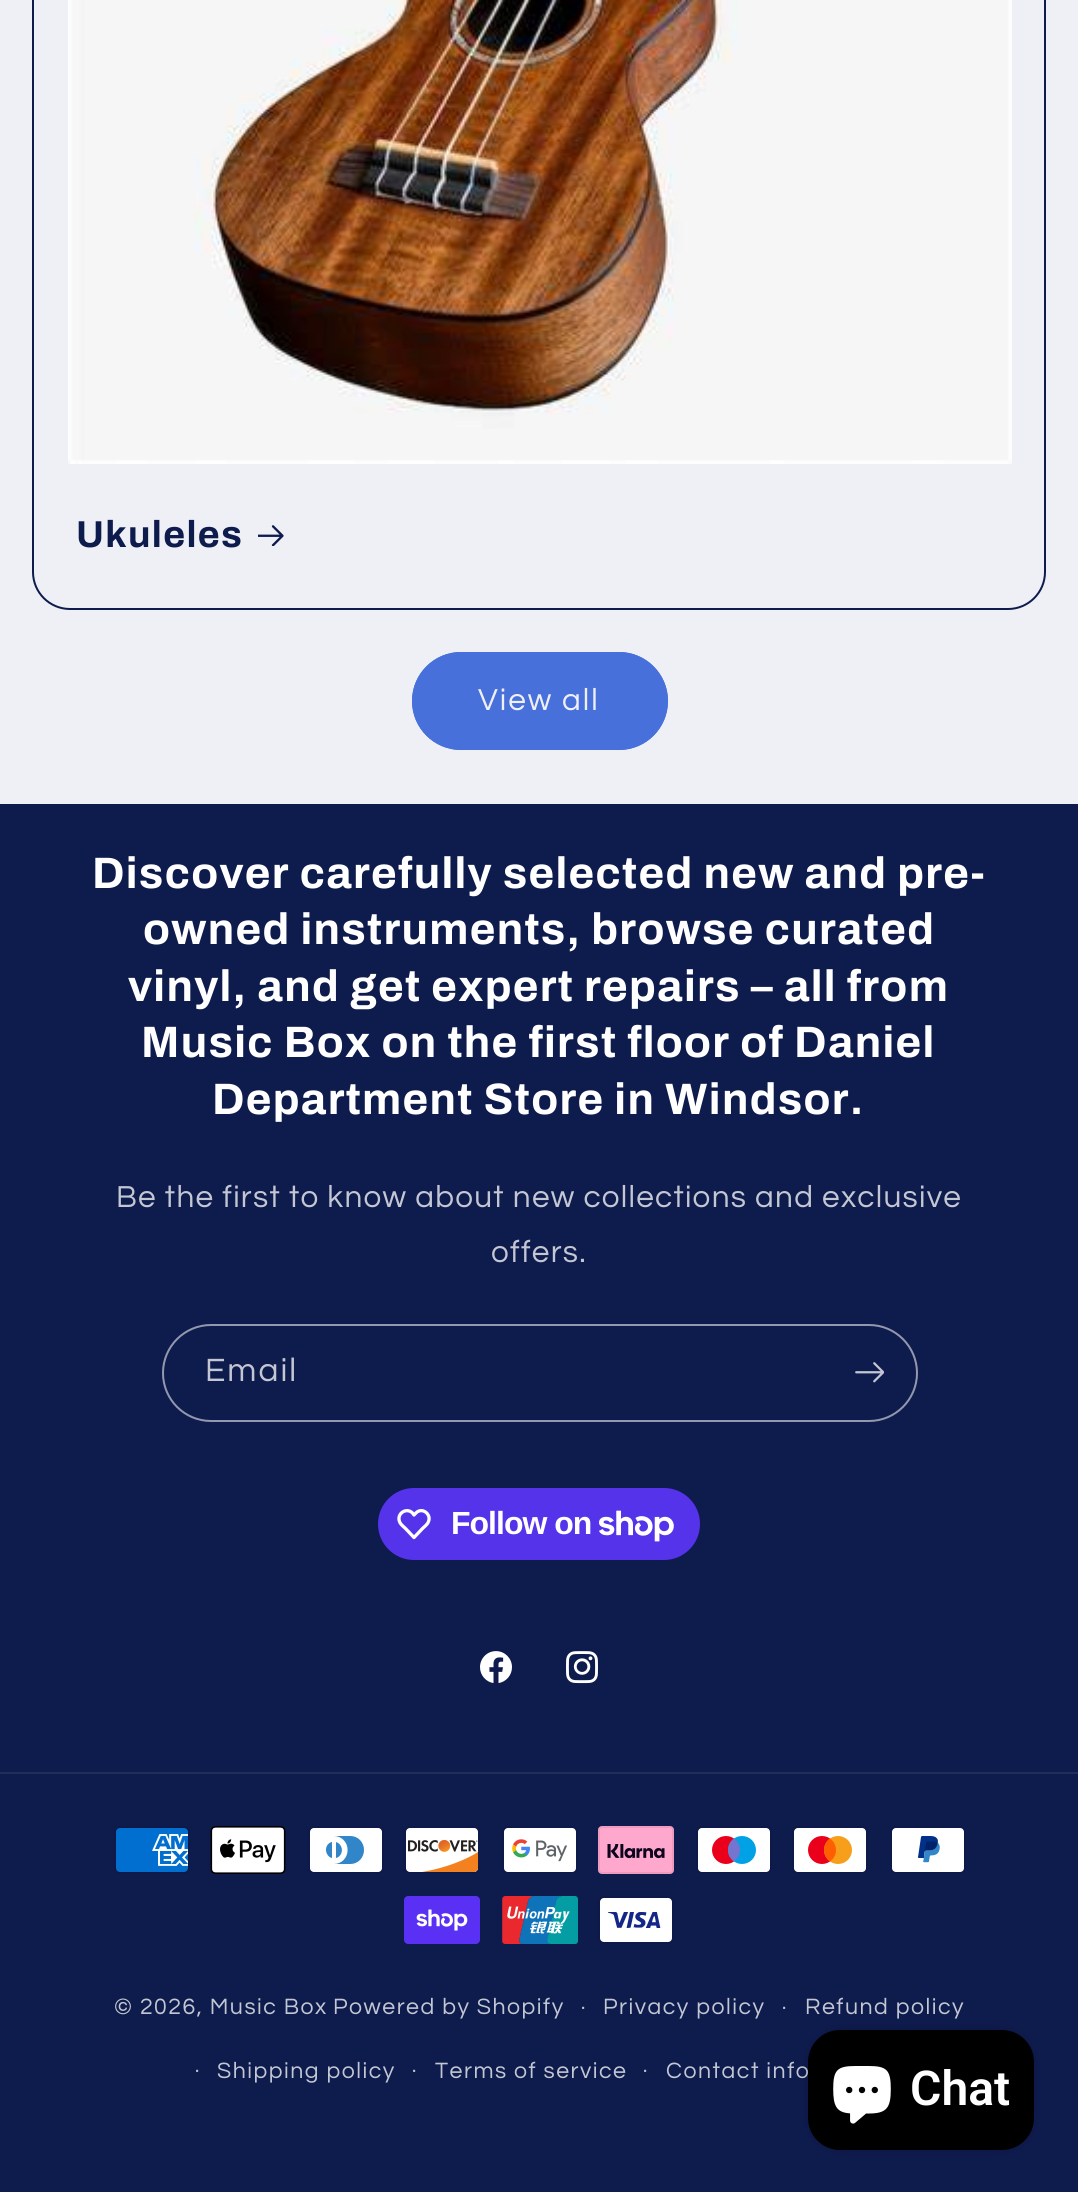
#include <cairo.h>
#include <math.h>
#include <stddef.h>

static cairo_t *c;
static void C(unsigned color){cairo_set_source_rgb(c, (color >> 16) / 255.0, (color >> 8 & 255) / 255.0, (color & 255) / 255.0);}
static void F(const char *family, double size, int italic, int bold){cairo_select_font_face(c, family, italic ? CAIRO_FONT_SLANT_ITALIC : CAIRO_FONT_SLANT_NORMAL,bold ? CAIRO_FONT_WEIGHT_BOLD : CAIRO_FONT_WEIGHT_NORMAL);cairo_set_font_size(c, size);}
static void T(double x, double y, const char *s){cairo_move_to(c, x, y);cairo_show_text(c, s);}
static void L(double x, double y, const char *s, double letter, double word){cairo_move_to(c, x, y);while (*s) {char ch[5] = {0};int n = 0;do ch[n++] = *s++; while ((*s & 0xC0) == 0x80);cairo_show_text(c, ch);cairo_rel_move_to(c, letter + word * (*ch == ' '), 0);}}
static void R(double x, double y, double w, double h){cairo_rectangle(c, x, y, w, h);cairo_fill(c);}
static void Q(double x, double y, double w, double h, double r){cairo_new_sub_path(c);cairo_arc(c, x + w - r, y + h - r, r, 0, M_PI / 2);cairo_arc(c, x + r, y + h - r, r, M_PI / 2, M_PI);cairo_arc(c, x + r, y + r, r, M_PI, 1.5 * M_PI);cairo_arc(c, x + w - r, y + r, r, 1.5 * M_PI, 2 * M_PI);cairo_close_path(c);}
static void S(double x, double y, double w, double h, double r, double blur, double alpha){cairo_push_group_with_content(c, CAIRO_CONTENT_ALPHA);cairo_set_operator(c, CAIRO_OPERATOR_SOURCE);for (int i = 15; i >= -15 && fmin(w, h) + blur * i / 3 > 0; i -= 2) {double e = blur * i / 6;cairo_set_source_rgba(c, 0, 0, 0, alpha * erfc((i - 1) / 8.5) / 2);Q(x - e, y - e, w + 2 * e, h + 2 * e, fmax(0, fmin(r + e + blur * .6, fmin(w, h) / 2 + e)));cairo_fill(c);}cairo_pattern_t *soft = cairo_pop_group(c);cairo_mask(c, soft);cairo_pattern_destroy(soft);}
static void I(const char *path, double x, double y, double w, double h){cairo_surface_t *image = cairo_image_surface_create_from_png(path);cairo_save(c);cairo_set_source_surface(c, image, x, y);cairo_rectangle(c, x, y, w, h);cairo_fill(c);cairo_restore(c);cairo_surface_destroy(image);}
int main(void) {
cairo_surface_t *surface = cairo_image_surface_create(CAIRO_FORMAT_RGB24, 1078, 2192);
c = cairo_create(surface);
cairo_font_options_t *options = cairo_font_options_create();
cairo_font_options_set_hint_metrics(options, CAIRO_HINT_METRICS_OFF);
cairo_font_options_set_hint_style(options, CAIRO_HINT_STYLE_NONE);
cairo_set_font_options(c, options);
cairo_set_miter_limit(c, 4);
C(0xeff0f5);
cairo_paint(c);
Q(33,-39,1012,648,37);
C(0x0e1b4d);
cairo_stroke(c);
I("1.png",68,0,944,464);
F("Archivo",37.5,0,1);
L(76,547,"Ukuleles",1.3,0);
I("2.png",258,525,26,21);
C(0x4770db);
Q(412,652,256,98,49);
cairo_fill(c);
Q(413,653,254,96,48);
cairo_stroke(c);
F("Questrial",31.5,0,0);
C(0xeff0f5);
L(478,710,"View all",2,0);
C(0x0e1b4d);
R(0,804,1078,1388);
F("Archivo",44,0,1);
C(0xffffff);
L(92,888,"Discover carefully selected new and pre-",1.3,0);
L(143,944,"owned instruments, browse curated",1.3,0);
L(128,1001,"vinyl, and get expert repairs – all from",1.3,0);
L(141,1057,"Music Box on the first floor of Daniel",1.3,0);
L(212,1114,"Department Store in Windsor.",1.3,0);
F("Questrial",31.5,0,0);
C(0xc3c6d3);
L(116,1207,"Be the first to know about new collections and exclusive",1.25,0);
L(491,1262,"offers.",1.25,0);
Q(163,1325,754,96,48);
C(0x9398af);
cairo_stroke(c);
F("Questrial",33.5,0,0);
C(0xc3c6d3);
L(205,1381,"Email",2,0);
I("3.png",855,1362,29,21);
C(0x5433eb);
Q(378,1488,322,72,36);
cairo_fill(c);
cairo_new_path(c);
cairo_move_to(c,412.5,1513);
cairo_line_to(c,414,1515);
cairo_curve_to(c,415.5,1513.5,417,1511.5,419,1511);
cairo_curve_to(c,425,1509,431,1515.5,428.5,1521.5);
cairo_curve_to(c,427.5,1524.5,424.5,1526.5,422.5,1528.5);
cairo_line_to(c,414,1537.5);
cairo_line_to(c,405.5,1528.5);
cairo_curve_to(c,403.5,1526.5,400.5,1524.5,399.5,1521.5);
cairo_curve_to(c,396.5,1513.5,406.5,1507,412.5,1513);
cairo_close_path(c);
C(0xffffff);
cairo_set_line_width(c,3.3);
cairo_set_line_join(c,CAIRO_LINE_JOIN_ROUND);
cairo_stroke(c);
F("Liberation Sans",32,0,1);
L(451,1534,"Follow on",-1,0);
I("4.png",599,1510,75,32);
I("5.png",480,1651,32,32);
I("6.png",566,1651,32,33);
C(0x212d5b);
R(0,1772,1078,2);
I("7.png",114,1826,76,48);
I("8.png",210,1826,76,48);
I("9.png",308,1826,76,48);
I("10.png",404,1826,76,48);
I("11.png",502,1826,76,48);
I("12.png",598,1826,76,48);
I("13.png",696,1826,76,48);
I("14.png",792,1826,76,48);
I("15.png",890,1826,76,48);
I("16.png",404,1896,76,48);
I("17.png",502,1896,76,48);
I("18.png",598,1896,76,48);
F("Questrial",21,0,0);
C(0xc3c6d3);
L(581,2014,"·",1.5,0);
F("Questrial",23.1,0,0);
L(603,2014,"Privacy policy",1.5,0);
F("Questrial",21,0,0);
L(782,2014,"·",1.5,0);
F("Questrial",23.1,0,0);
L(805,2014,"Refund policy",1.5,0);
F("Questrial",21,0,0);
L(195,2077,"·",1.5,0);
F("Questrial",23.1,0,0);
L(217,2078,"Shipping policy",1.5,0);
F("Questrial",21,0,0);
L(412,2077,"·",1.5,0);
F("Questrial",23.1,0,0);
L(435,2078,"Terms of service",1.5,0);
F("Questrial",21,0,0);
L(643,2077,"·",1.5,0);
F("Questrial",23.1,0,0);
L(666,2078,"Contact info",1.5,0);
L(114,2014,"© 2026, Music Box",1.5,0);
L(333,2014,"Powered by Shopify",1.5,0);
C(0x000000);
S(808,2030,226,120,32,5,.15);
C(0x000000);
Q(808,2030,226,120,32);
cairo_fill(c);
I("19.png",833,2066,58,58);
F("Roboto SemiBold",48,0,0);
C(0xffffff);
T(910,2105,"Chat");
cairo_surface_write_to_png(surface, "o.png");
cairo_font_options_destroy(options);
cairo_destroy(c);
cairo_surface_destroy(surface);
return 0;
}
